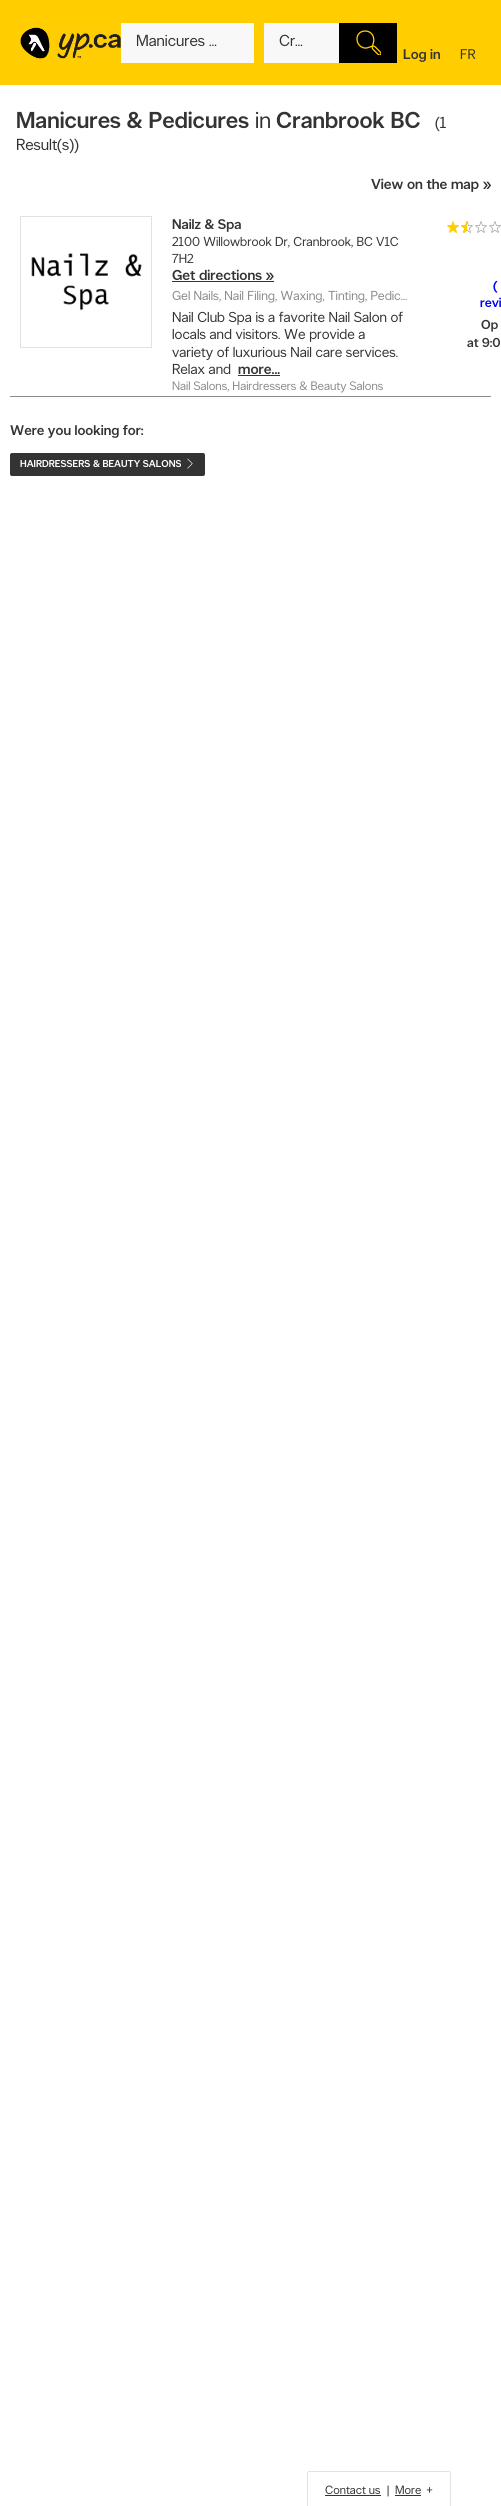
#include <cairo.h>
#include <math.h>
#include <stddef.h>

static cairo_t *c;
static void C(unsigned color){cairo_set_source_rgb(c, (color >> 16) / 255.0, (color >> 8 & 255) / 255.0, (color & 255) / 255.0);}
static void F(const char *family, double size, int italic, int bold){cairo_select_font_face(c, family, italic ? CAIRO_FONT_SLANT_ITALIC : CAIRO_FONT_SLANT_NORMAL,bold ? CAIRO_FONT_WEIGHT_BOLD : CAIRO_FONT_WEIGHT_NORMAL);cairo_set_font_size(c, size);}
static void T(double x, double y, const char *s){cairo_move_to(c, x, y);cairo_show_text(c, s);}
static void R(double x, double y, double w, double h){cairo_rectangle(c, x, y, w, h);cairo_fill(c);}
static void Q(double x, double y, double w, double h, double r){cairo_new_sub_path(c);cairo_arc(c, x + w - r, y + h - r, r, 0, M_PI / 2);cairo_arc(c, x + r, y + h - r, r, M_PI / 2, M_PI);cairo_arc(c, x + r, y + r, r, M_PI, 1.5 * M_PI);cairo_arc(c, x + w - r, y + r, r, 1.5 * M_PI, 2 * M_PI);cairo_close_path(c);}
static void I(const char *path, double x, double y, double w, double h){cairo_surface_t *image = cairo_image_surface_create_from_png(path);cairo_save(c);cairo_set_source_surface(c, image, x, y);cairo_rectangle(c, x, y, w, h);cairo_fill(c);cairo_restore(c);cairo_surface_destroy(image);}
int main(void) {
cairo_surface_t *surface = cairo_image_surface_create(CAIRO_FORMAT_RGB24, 501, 2506);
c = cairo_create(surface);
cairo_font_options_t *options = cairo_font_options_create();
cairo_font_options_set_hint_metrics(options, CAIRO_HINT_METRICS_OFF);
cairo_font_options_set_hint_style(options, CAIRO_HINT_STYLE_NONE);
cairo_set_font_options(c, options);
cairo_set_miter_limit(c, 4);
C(0xffffff);
cairo_paint(c);
C(0xffcd00);
R(0,0,501,85);
I("1.png",20,27,101,32);
C(0xf8f8f8);
R(121,23,133,40);
F("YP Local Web",16,0,0);
C(0x333333);
T(136,46,"Manicures …");
C(0xf8f8f8);
R(264,23,75,40);
C(0x333333);
T(279,46,"Cr…");
C(0x000000);
R(339,23,58,40);
I("2.png",356,30,25,25);
F("YP Local Web Medium",14,0,0);
C(0x333333);
T(403,59,"Log in");
F("YP Local Web",14,0,0);
T(460,59,"FR");
F("YP Local Web Medium",23,0,0);
T(16,128,"Manicures & Pedicures");
F("YP Local Web",23,0,0);
T(255,128,"in");
F("YP Local Web Medium",23,0,0);
T(276,128,"Cranbrook BC");
F("YP Local Web",16,0,0);
T(435,128,"(1");
T(16,150,"Result(s))");
F("YP Local Web Medium",14.4,0,0);
T(371,189,"View on the map »");
C(0x8a8a8a);
R(10,396,481,1);
cairo_rectangle(c,20.5,216.5,131,131);
C(0xe2e2e2);
cairo_set_line_width(c,1);
cairo_stroke(c);
I("3.png",31,253,111,58);
F("YP Local Web Medium",14,0,0);
C(0x333333);
T(172,229,"Nailz & Spa");
F("YP Local Web",13,0,0);
T(172,246,"2100 Willowbrook Dr, Cranbrook, BC V1C");
T(172,263,"7H2");
F("YP Local Web Medium",14.4,0,0);
T(172,280,"Get directions »");
R(172,281,102,1);
F("YP Local Web",13,0,0);
C(0x8a8a8a);
T(172,300,"Gel Nails, Nail Filing, Waxing, Tinting, Pedic…");
F("YP Local Web",14.4,0,0);
C(0x333333);
T(172,322,"Nail Club Spa is a favorite Nail Salon of");
T(172,339,"locals and visitors. We provide a");
T(172,357,"variety of luxurious Nail care services.");
T(172,374,"Relax and");
F("YP Local Web Medium",14.4,0,0);
T(238,374,"more...");
R(238,375,42,1);
F("YP Local Web",12.25,0,0);
C(0x8a8a8a);
T(172,390,"Nail Salons, Hairdressers & Beauty Salons");
I("4.png",447,221,12,12);
I("5.png",461,221,12,12);
I("6.png",475,221,12,12);
I("6.png",489,221,12,12);
F("YP Local Web Medium",13,0,0);
C(0x0000ff);
T(493,290,"(");
T(480,307,"revi");
C(0x333333);
T(481,329,"Op");
T(467,347,"at 9:0");
F("YP Local Web Medium",14,0,0);
T(10,435,"Were you looking for:");
Q(10,453,195,23,2);
cairo_fill(c);
F("YP Local Web Medium",10,0,0);
C(0xffffff);
T(20,467,"HAIRDRESSERS & BEAUTY SALONS");
I("7.png",187,458,6,11);
C(0xe2e2e2);
R(308,2471,142,1);
R(450,2472,1,34);
R(307,2472,1,34);
F("YP Local Web",12,0,0);
C(0x333333);
T(325,2494,"Contact us");
R(325,2495,56,1);
T(387,2494,"|");
T(395,2494,"More");
R(395,2495,26,1);
T(426,2494,"+");
cairo_surface_write_to_png(surface, "o.png");
cairo_font_options_destroy(options);
cairo_destroy(c);
cairo_surface_destroy(surface);
return 0;
}
